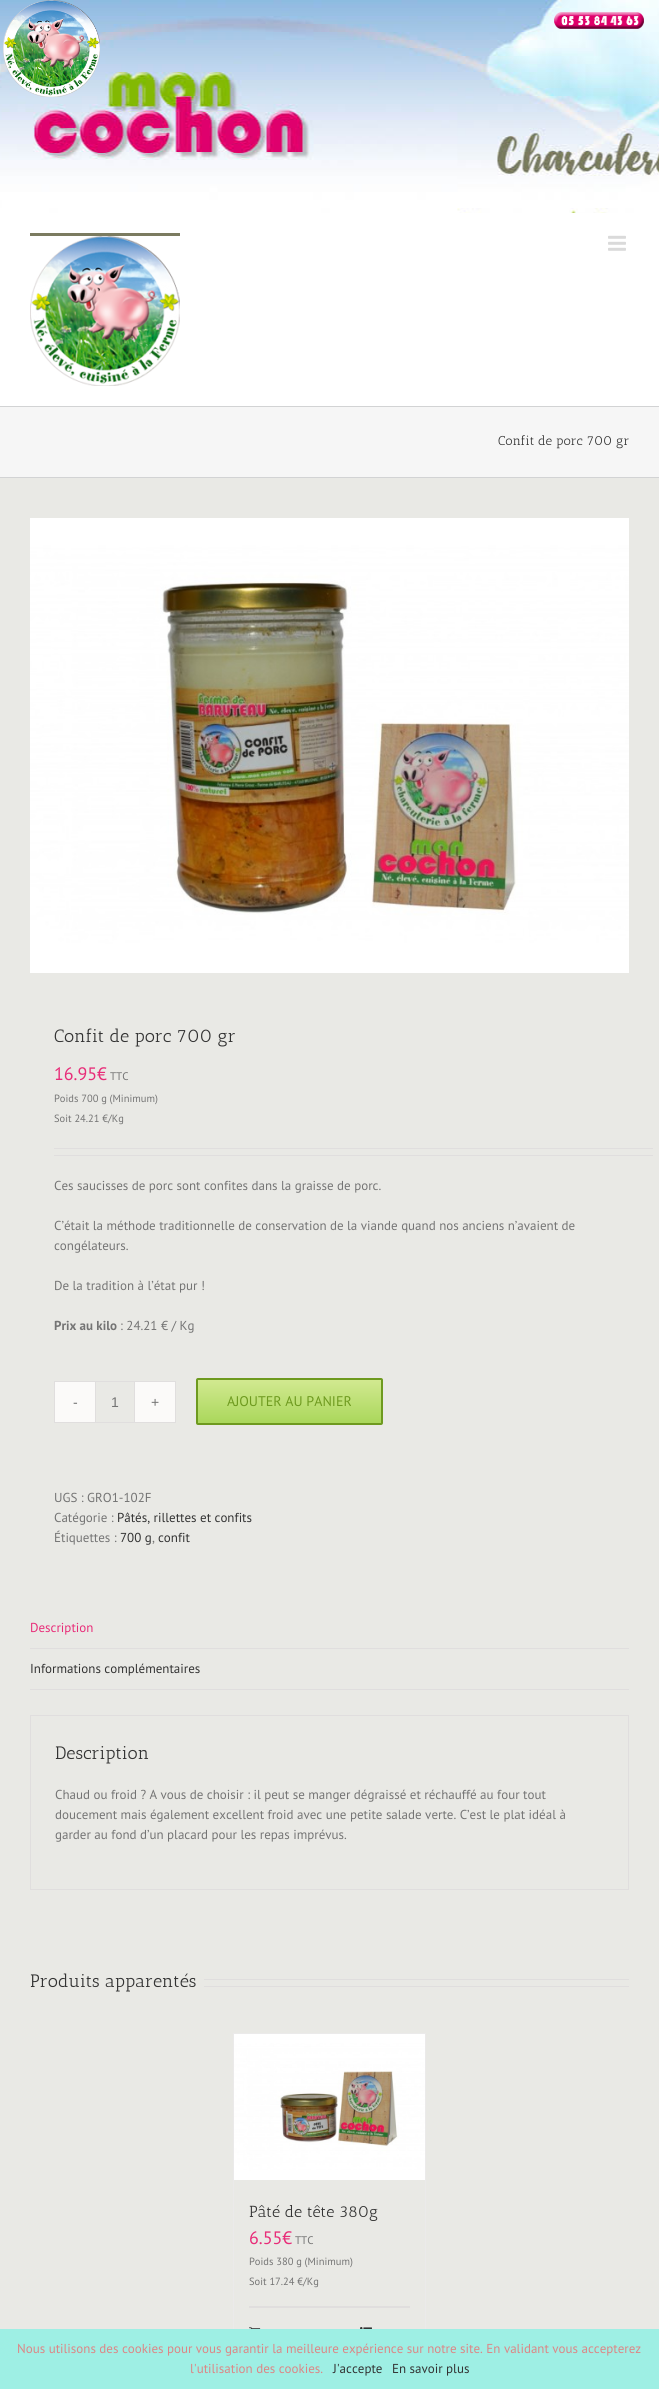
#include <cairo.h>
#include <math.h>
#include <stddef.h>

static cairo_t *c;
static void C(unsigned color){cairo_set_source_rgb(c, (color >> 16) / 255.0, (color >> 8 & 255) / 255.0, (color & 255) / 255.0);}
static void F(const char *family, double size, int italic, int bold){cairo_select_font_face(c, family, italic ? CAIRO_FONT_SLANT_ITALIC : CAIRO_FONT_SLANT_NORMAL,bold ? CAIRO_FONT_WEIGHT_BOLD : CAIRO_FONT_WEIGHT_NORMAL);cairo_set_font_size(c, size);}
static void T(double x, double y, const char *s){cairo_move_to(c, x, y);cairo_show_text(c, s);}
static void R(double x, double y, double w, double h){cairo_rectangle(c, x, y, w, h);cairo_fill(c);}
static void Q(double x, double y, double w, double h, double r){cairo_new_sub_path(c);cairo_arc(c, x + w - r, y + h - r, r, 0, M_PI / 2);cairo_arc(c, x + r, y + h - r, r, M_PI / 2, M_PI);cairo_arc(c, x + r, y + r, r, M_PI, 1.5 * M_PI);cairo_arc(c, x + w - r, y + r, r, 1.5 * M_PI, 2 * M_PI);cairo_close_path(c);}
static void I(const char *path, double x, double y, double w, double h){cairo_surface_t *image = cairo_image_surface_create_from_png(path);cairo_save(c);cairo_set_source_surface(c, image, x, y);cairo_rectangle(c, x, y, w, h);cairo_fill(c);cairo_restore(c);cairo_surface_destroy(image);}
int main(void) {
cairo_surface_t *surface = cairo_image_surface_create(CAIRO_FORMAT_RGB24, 659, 2389);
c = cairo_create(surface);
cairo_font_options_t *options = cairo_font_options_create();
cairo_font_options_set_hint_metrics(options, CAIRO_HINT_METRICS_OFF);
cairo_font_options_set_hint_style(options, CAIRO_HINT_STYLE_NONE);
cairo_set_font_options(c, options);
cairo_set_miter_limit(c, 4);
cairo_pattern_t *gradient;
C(0xe9e9e5);
cairo_paint(c);
I("1.png",0,0,659,213);
I("2.png",3,0,97,97);
I("3.png",554,12,90,17);
C(0xffffff);
R(0,213,659,193);
C(0x7b7b60);
R(30,233,150,3);
I("4.png",30,236,150,150);
I("5.png",608,235,18,16);
C(0xf6f6f6);
R(0,407,659,70);
C(0xd2d3d4);
R(0,406,659,1);
R(0,477,659,1);
F("Antic Slab",13,0,0);
C(0x333333);
T(498,445,"Confit de porc 700 gr");
I("6.png",30,518,599,455);
F("Antic Slab",18,0,0);
T(54,1042,"Confit de porc 700 gr");
F("PT Sans",18,0,0);
C(0xe82c78);
T(54,1080,"16.95€");
F("PT Sans",11,0,0);
C(0x747474);
T(110,1080,"TTC");
F("PT Sans",10.5,0,0);
T(54,1102,"Poids 700 g (Minimum)");
T(54,1122,"Soit 24.21 €/Kg");
C(0xe0dede);
R(54,1148,599,1);
R(54,1155,599,1);
F("PT Sans",13,0,0);
C(0x747474);
T(54,1190,"Ces saucisses de porc sont confites dans la graisse de porc.");
T(54,1230,"C’était la méthode traditionnelle de conservation de la viande quand nos anciens n’avaient de");
T(54,1250,"congélateurs.");
T(54,1290,"De la tradition à l’état pur !");
F("PT Sans",13,0,1);
T(54,1330,"Prix au kilo");
F("PT Sans",13,0,0);
T(120,1330,": 24.21 € / Kg");
cairo_rectangle(c,54.5,1381.5,121,41);
C(0xe0dede);
cairo_set_line_width(c,1);
cairo_stroke(c);
C(0xfbfaf9);
R(55,1382,40,40);
F("Liberation Sans",14,0,0);
C(0x747474);
T(73,1407,"-");
C(0xe0dede);
R(134,1382,1,40);
R(95,1382,1,40);
C(0x747474);
T(111,1407,"1");
C(0xfbfaf9);
R(135,1382,40,40);
C(0x747474);
T(151,1407,"+");
gradient = cairo_pattern_create_linear(290,1423,290,1380);
cairo_pattern_add_color_stop_rgba(gradient,0,0.667,0.843,0.357,1);
cairo_pattern_add_color_stop_rgba(gradient,1,0.82,0.914,0.565,1);
cairo_set_source(c,gradient);
cairo_pattern_destroy(gradient);
R(198,1380,183,43);
Q(197,1379,185,45,1);
C(0x6e9a1f);
cairo_set_line_width(c,2);
cairo_stroke(c);
F("PT Sans",14,0,0);
T(227,1406,"AJOUTER AU PANIER");
F("PT Sans",13,0,0);
C(0x747474);
T(54,1502,"UGS : GRO1-102F");
T(54,1522,"Catégorie :");
C(0x333333);
T(117,1522,"Pâtés, rillettes et confits");
C(0x747474);
T(54,1542,"Étiquettes :");
C(0x333333);
T(120,1542,"700 g");
C(0x747474);
T(152,1542,",");
C(0x333333);
T(158,1542,"confit");
C(0xe0dede);
R(30,1648,599,1);
C(0xe82c78);
T(30,1632,"Description");
C(0xe0dede);
R(30,1689,599,1);
C(0x333333);
T(30,1673,"Informations complémentaires");
cairo_rectangle(c,30.5,1715.5,598,174);
C(0xe0dede);
cairo_set_line_width(c,1);
cairo_stroke(c);
F("Antic Slab",18,0,0);
C(0x333333);
T(55,1759,"Description");
F("PT Sans",13,0,0);
C(0x747474);
T(55,1799,"Chaud ou froid ? A vous de choisir : il peut se manger dégraissé et réchauffé au four tout");
T(55,1819,"doucement mais également excellent froid avec une petite salade verte. C’est le plat idéal à");
T(55,1839,"garder au fond d’un placard pour les repas imprévus.");
F("Antic Slab",18,0,0);
C(0x333333);
T(30,1987,"Produits apparentés");
C(0xe0dede);
R(204,1979,425,1);
R(204,1986,425,1);
C(0xebeaea);
R(233,2033,193,1);
R(425,2033,1,296);
R(233,2033,1,296);
I("7.png",234,2034,191,146);
F("Antic Slab",16,0,0);
C(0x333333);
T(249,2217,"Pâté de tête 380g");
F("PT Sans",18,0,0);
C(0xe82c78);
T(249,2244,"6.55€");
F("PT Sans",11,0,0);
C(0x747474);
T(295,2244,"TTC");
F("PT Sans",10.5,0,0);
T(249,2265,"Poids 380 g (Minimum)");
T(249,2285,"Soit 17.24 €/Kg");
C(0xe0dede);
R(249,2306,161,2);
I("8.png",249,2327,12,2);
I("9.png",360,2327,12,2);
C(0x9eefe4);
R(0,2329,659,60);
F("PT Sans",13,0,0);
C(0xdd8585);
T(17,2353,"Nous utilisons des cookies pour vous garantir la meilleure expérience sur notre site. En validant vous accepterez");
T(190,2373,"l'utilisation des cookies.");
C(0x333333);
T(333,2373,"J'accepte");
T(392,2373,"En savoir plus");
cairo_surface_write_to_png(surface, "o.png");
cairo_font_options_destroy(options);
cairo_destroy(c);
cairo_surface_destroy(surface);
return 0;
}
